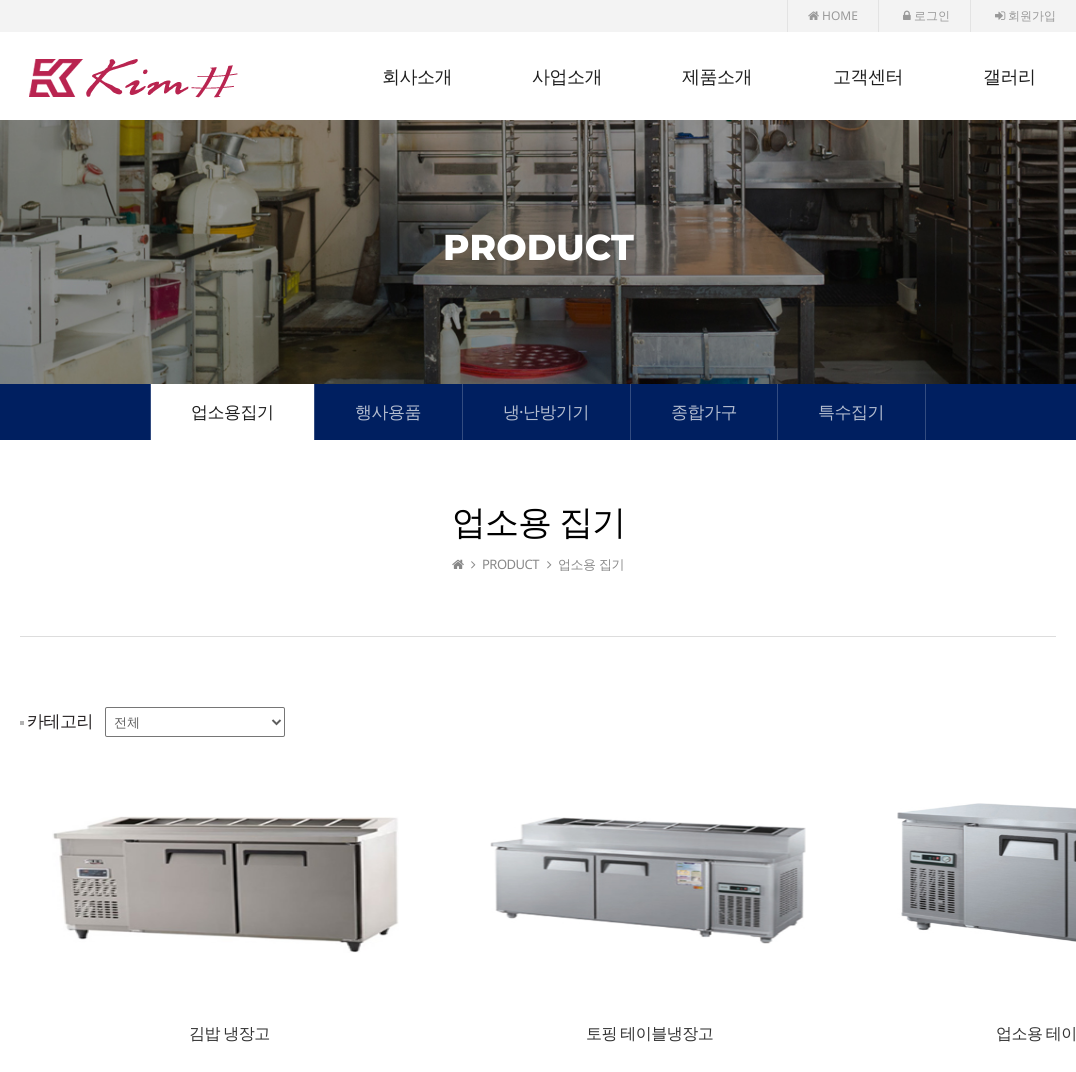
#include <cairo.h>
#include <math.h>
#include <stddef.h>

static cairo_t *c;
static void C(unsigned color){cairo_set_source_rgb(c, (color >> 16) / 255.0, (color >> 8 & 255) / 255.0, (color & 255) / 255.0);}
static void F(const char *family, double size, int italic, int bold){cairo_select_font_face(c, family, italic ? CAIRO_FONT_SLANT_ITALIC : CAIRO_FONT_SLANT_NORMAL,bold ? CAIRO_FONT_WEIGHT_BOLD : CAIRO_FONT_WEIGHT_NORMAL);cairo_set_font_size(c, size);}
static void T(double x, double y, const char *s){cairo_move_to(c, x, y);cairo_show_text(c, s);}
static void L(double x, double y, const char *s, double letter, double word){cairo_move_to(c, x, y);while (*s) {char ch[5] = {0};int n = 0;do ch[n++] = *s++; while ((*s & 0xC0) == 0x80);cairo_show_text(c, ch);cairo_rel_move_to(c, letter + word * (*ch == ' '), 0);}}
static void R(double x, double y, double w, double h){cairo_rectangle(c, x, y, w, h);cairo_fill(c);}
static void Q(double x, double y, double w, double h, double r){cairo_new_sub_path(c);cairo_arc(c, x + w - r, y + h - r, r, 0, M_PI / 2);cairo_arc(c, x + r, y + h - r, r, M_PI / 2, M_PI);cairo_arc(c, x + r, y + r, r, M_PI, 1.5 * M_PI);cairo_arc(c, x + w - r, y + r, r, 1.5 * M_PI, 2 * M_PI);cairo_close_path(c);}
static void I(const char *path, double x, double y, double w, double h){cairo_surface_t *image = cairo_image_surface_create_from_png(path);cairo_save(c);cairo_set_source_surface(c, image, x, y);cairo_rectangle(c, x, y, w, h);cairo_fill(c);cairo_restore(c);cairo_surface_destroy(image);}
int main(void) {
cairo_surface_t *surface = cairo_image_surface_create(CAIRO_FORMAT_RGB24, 1076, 1072);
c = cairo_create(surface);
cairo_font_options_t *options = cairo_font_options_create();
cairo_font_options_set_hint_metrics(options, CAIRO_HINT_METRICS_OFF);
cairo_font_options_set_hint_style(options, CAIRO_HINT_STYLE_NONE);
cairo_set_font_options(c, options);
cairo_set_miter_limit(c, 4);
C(0xffffff);
cairo_paint(c);
C(0xf3f3f3);
R(0,0,1076,32);
C(0xe3e3e3);
R(878,0,1,32);
R(787,0,1,32);
I("1.png",808,11,11,9);
F("Noto Sans",12,0,0);
C(0x999999);
T(822,20,"HOME");
C(0xe3e3e3);
R(970,0,1,32);
I("2.png",903,10,8,10);
F("WenQuanYi Zen Hei Medium",12,0,0);
C(0x999999);
T(914,20,"로그인");
I("3.png",995,11,11,9);
T(1008,20,"회원가입");
I("4.png",29,59,209,39);
F("WenQuanYi Zen Hei Medium",18,0,0);
C(0x1e1e1e);
L(382,83,"회사소개",-.5,0);
L(532,83,"사업소개",-.5,0);
L(682,83,"제품소개",-.5,0);
L(833,83,"고객센터",-.5,0);
L(983,83,"갤러리",-.5,0);
I("5.png",0,120,1076,264);
F("Montserrat ExtraBold",36,0,0);
C(0xffffff);
T(443,260,"PRODUCT");
C(0x001f60);
R(0,384,1076,56);
C(0x334c80);
R(150,384,1,56);
C(0xffffff);
R(151,384,163,56);
F("WenQuanYi Zen Hei Medium",17,0,0);
C(0x1e1e1e);
L(191,418,"업소용집기",-.5,0);
C(0x334c80);
R(314,384,1,56);
C(0xb3bccf);
L(355,418,"행사용품",-.5,0);
C(0x334c80);
R(462,384,1,56);
C(0xb3bccf);
L(503,418,"냉",-.5,0);
F("Noto Sans",17,0,0);
L(519,418,"·",-.5,0);
F("WenQuanYi Zen Hei Medium",17,0,0);
L(523,418,"난방기기",-.5,0);
C(0x334c80);
R(630,384,1,56);
C(0xb3bccf);
L(671,418,"종합가구",-.5,0);
C(0x334c80);
R(925,384,1,56);
R(777,384,1,56);
C(0xb3bccf);
L(818,418,"특수집기",-.5,0);
C(0xdddddd);
R(20,636,1036,1);
F("WenQuanYi Zen Hei Medium",34,0,0);
C(0x000000);
L(452,534,"업소용 집기",-1,-1);
I("6.png",452,559,12,10);
I("7.png",471,561,5,8);
F("Noto Sans",13,0,0);
C(0x888888);
L(482,569,"PRODUCT",-.5,0);
I("7.png",547,561,5,8);
F("WenQuanYi Zen Hei Medium",13,0,0);
L(558,569,"업소용 집기",-.5,0);
C(0xb2b2b2);
R(20,721,4,4);
F("WenQuanYi Zen Hei Medium",17,0,0);
C(0x252122);
L(27,727,"카테고리",-.5,0);
Q(105.5,707.5,179,29,1.5);
C(0x767676);
cairo_set_line_width(c,1);
cairo_stroke(c);
cairo_new_path(c);
cairo_move_to(c,272.5,720);
cairo_line_to(c,276.5,724);
cairo_line_to(c,280.5,720);
C(0x5d5d5d);
cairo_set_line_width(c,2);
cairo_stroke(c);
F("WenQuanYi Zen Hei Medium",13,0,0);
T(114,727,"전체");
I("8.png",52,816,347,137);
F("WenQuanYi Zen Hei Medium",16,0,0);
C(0x333333);
L(189,1039,"김밥 냉장고",-.5,-1);
I("9.png",490,817,316,127);
L(586,1039,"토핑 테이블냉장고",-.5,-1);
I("10.png",897,803,179,139);
L(996,1039,"업소용 테이",-.5,-1);
cairo_surface_write_to_png(surface, "o.png");
cairo_font_options_destroy(options);
cairo_destroy(c);
cairo_surface_destroy(surface);
return 0;
}
